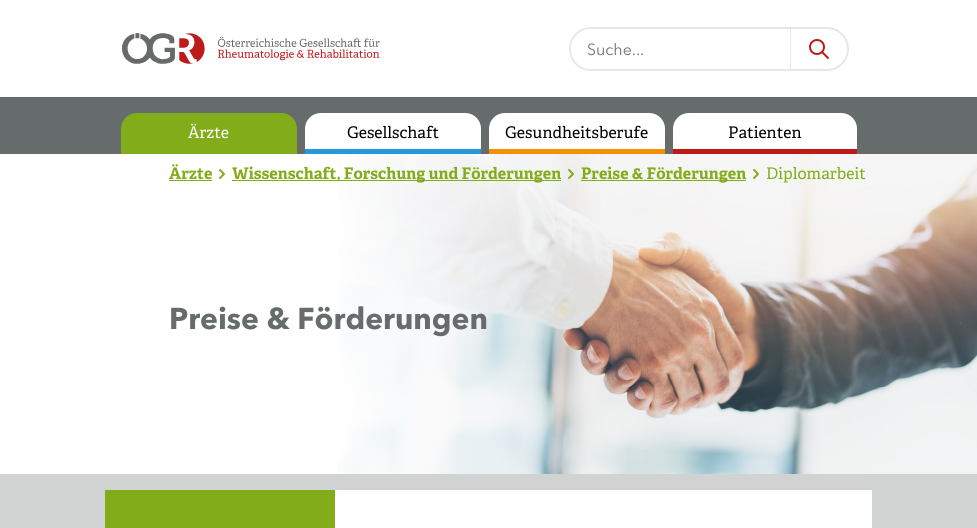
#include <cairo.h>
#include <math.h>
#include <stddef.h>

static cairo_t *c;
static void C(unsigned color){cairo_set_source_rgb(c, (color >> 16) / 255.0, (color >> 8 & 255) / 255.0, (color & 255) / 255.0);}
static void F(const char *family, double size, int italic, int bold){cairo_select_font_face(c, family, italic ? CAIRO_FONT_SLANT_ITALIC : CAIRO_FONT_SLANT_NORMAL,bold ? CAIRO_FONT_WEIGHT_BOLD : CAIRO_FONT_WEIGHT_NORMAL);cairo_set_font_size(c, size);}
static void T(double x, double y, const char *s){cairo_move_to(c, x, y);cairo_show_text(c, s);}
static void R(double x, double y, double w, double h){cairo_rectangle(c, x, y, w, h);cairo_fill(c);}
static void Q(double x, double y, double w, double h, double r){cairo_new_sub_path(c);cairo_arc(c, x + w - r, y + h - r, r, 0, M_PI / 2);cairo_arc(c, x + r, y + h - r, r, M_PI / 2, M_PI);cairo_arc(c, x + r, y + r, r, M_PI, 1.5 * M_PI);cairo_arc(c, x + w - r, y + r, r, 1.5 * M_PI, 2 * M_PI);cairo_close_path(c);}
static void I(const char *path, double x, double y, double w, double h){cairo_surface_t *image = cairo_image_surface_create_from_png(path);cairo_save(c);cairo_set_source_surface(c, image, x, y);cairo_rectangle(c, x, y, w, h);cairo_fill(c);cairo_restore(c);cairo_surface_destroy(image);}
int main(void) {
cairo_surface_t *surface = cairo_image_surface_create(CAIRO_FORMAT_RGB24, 977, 528);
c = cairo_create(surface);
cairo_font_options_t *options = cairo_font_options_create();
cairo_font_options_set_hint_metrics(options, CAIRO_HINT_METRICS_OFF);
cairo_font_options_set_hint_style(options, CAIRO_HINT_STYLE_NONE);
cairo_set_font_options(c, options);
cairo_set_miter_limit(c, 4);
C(0xffffff);
cairo_paint(c);
I("1.png",122,33,258,31);
Q(570,28,278,42,21);
C(0xe5e7eb);
cairo_stroke(c);
C(0xffffff);
Q(571,29,219,40,20);
cairo_fill(c);
F("Avenir Next",16,0,0);
C(0x6b7280);
T(587,55,"Suche...");
C(0xe5e7eb);
R(790,29,1,40);
I("2.png",809,39,20,20);
C(0x666b6b);
R(0,97,977,57);
C(0x82ac1a);
cairo_new_path(c);
cairo_move_to(c,137,113);
cairo_line_to(c,281,113);
cairo_curve_to(c,290,113,297,120,297,129);
cairo_line_to(c,297,149);
cairo_line_to(c,121,149);
cairo_line_to(c,121,129);
cairo_curve_to(c,121,120,128,113,137,113);
cairo_close_path(c);
cairo_fill(c);
R(121,149,176,5);
F("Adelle",16,0,0);
C(0xffffff);
T(188,138,"Ärzte");
cairo_new_path(c);
cairo_move_to(c,321,113);
cairo_line_to(c,465,113);
cairo_curve_to(c,474,113,481,120,481,129);
cairo_line_to(c,481,149);
cairo_line_to(c,305,149);
cairo_line_to(c,305,129);
cairo_curve_to(c,305,120,312,113,321,113);
cairo_close_path(c);
cairo_fill(c);
C(0x269ad7);
R(305,149,176,5);
C(0x000000);
T(347,138,"Gesellschaft");
C(0xffffff);
cairo_new_path(c);
cairo_move_to(c,505,113);
cairo_line_to(c,649,113);
cairo_curve_to(c,658,113,665,120,665,129);
cairo_line_to(c,665,149);
cairo_line_to(c,489,149);
cairo_line_to(c,489,129);
cairo_curve_to(c,489,120,496,113,505,113);
cairo_close_path(c);
cairo_fill(c);
C(0xf49100);
R(489,149,176,5);
C(0x000000);
T(505,138,"Gesundheitsberufe");
C(0xffffff);
cairo_new_path(c);
cairo_move_to(c,689,113);
cairo_line_to(c,841,113);
cairo_curve_to(c,850,113,857,120,857,129);
cairo_line_to(c,857,149);
cairo_line_to(c,673,149);
cairo_line_to(c,673,129);
cairo_curve_to(c,673,120,680,113,689,113);
cairo_close_path(c);
cairo_fill(c);
C(0xbd1b19);
R(673,149,184,5);
C(0x000000);
T(728,138,"Patienten");
I("3.png",337,154,640,320);
F("Adelle",16,0,1);
C(0x82ac1a);
T(169,179,"Ärzte");
R(169,180,43,1);
I("4.png",219,169,6,10);
R(232,180,329,1);
T(232,179,"Wissenschaft, Forschung und Förderungen");
I("5.png",568,169,6,10);
R(581,180,165,1);
T(581,179,"Preise & Förderungen");
I("6.png",753,169,6,10);
F("Adelle",16,0,0);
T(766,179,"Diplomarbeit");
F("Avenir Next",30,0,1);
C(0x666b6b);
T(169,329,"Preise & Förderungen");
C(0xd1d3d2);
R(0,474,977,54);
C(0x82ac1a);
R(105,490,230,38);
C(0xffffff);
R(335,490,537,38);
cairo_surface_write_to_png(surface, "o.png");
cairo_font_options_destroy(options);
cairo_destroy(c);
cairo_surface_destroy(surface);
return 0;
}
